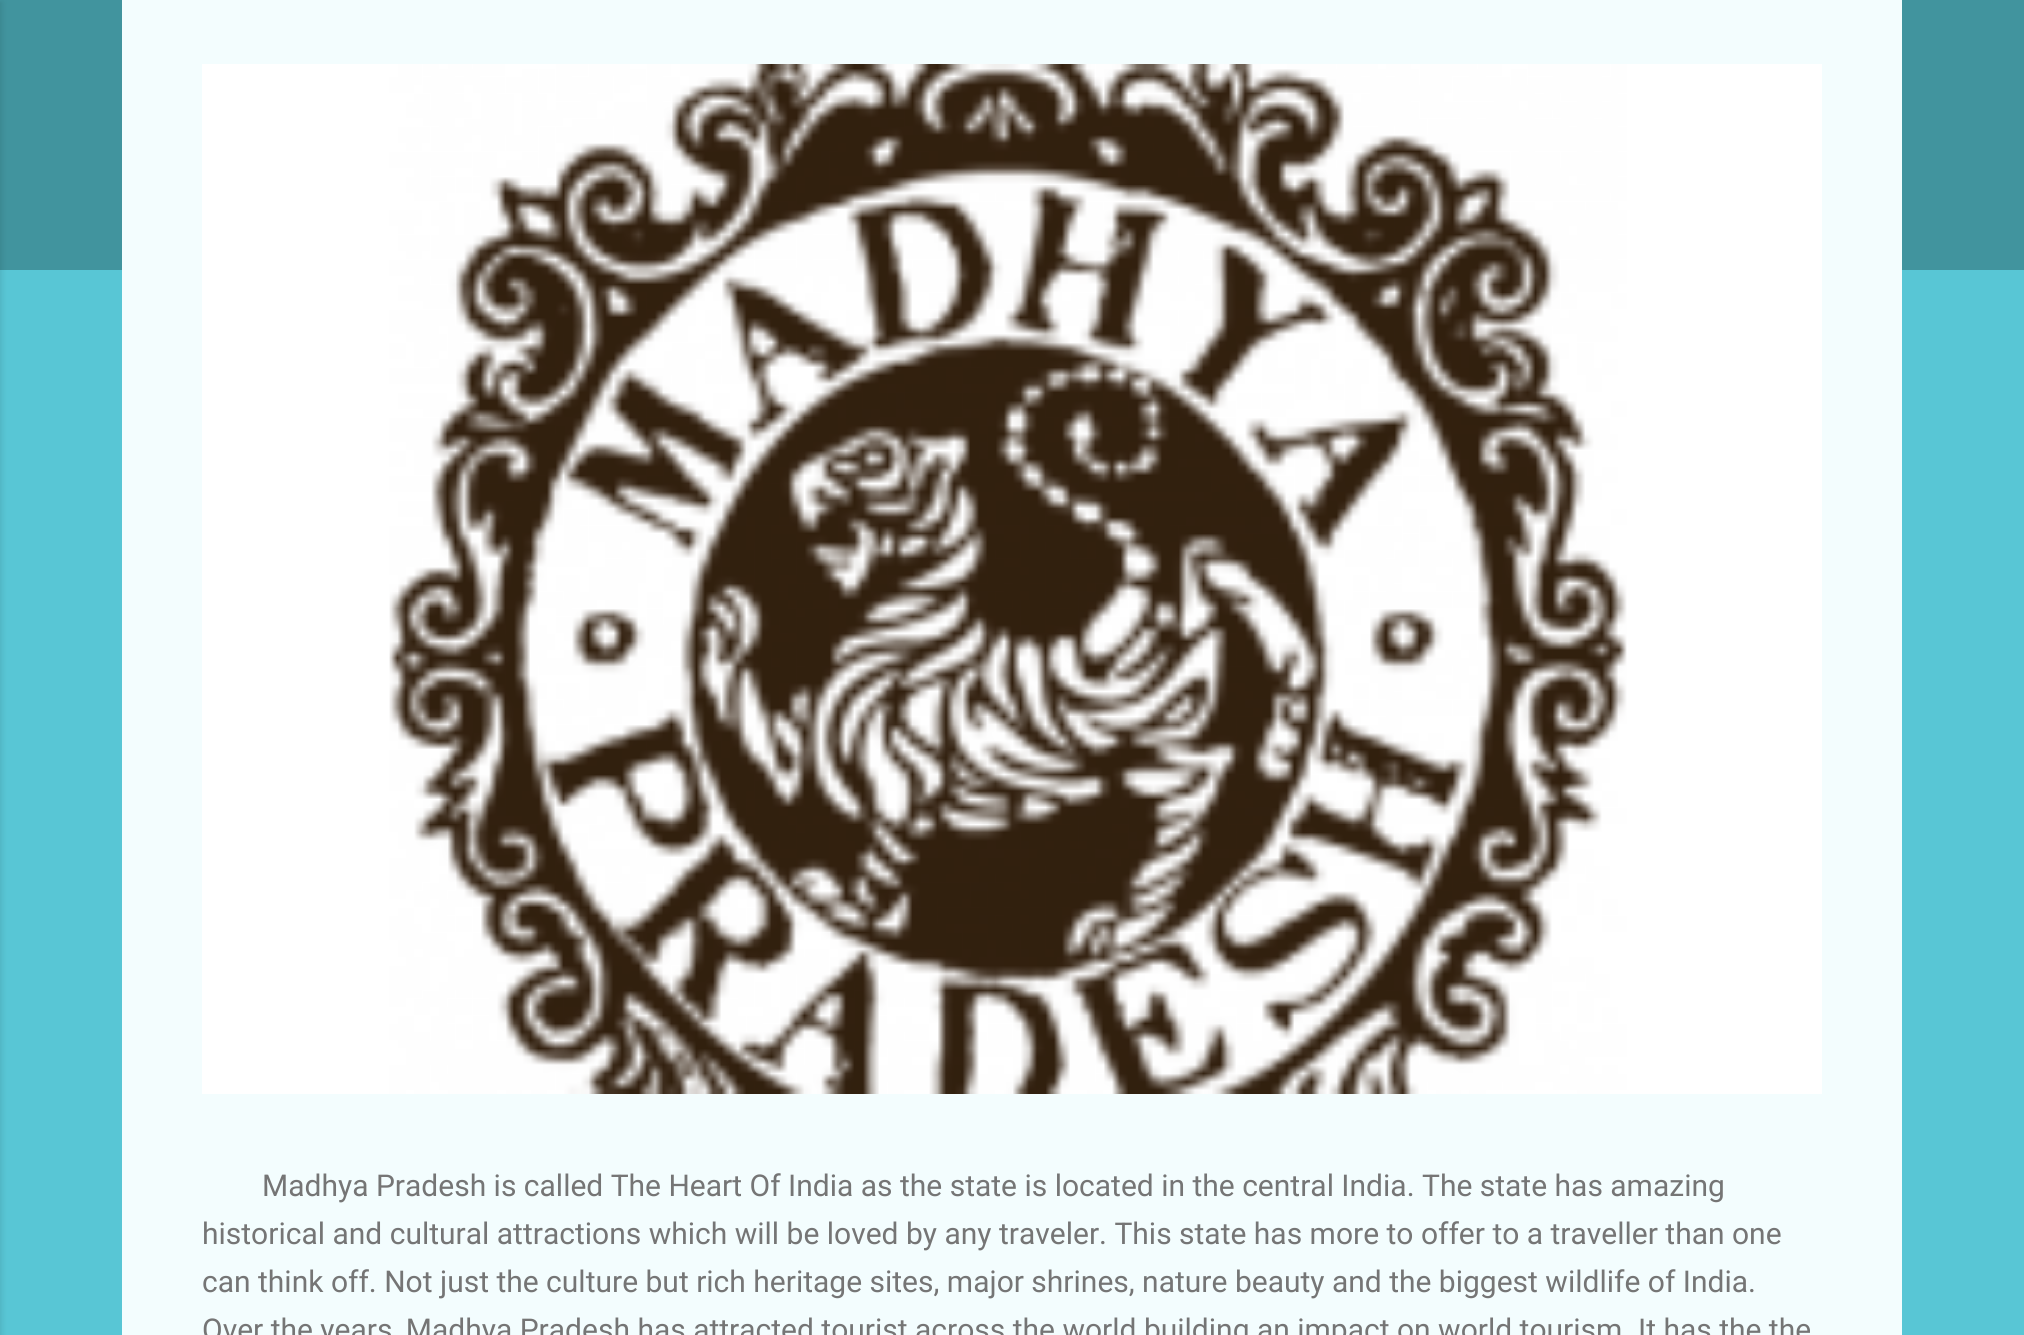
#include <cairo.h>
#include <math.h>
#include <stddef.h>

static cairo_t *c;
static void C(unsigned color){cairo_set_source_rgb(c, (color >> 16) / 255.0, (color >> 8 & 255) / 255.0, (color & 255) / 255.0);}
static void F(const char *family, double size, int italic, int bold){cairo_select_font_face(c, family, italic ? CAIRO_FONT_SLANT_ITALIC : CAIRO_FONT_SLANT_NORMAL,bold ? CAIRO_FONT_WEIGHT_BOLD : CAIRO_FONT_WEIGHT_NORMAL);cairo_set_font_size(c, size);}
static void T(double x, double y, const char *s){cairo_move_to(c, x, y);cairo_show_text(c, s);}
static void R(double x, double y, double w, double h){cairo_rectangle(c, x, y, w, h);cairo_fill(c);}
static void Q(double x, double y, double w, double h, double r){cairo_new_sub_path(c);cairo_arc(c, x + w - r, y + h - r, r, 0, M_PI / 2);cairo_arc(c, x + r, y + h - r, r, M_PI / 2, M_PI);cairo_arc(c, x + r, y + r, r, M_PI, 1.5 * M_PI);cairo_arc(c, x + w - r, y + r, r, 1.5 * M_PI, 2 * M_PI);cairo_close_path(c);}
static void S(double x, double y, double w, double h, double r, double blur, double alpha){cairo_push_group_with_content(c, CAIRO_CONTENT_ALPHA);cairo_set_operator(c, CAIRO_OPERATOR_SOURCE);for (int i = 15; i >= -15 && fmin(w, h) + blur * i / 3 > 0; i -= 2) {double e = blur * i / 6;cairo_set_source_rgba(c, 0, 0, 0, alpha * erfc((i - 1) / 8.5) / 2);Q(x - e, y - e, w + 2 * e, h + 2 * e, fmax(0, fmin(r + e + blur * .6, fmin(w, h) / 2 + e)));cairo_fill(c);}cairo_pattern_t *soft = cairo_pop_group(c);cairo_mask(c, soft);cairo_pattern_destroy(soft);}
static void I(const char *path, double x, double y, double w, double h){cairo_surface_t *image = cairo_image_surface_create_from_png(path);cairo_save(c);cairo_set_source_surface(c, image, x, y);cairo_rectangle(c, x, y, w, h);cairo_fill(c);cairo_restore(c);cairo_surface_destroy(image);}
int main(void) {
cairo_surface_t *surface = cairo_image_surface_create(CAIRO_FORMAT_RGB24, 2024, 1335);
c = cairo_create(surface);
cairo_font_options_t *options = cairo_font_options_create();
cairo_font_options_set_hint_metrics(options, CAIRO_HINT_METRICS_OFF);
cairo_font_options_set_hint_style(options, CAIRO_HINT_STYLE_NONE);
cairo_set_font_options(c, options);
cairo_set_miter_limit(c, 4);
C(0x58c6d5);
cairo_paint(c);
C(0x41949e);
R(0,0,2024,270);
C(0x000000);
S(-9,2,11,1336,0,3,.1);
C(0xf3fdfe);
R(122,0,1780,1335);
I("1.png",202,64,1620,1030);
F("Roboto",30,0,0);
C(0x757575);
T(262,1196,"Madhya Pradesh is called The Heart Of India as the state is located in the central India. The state has amazing");
T(202,1244,"historical and cultural attractions which will be loved by any traveler. This state has more to offer to a traveller than one");
T(202,1292,"can think off. Not just the culture but rich heritage sites, major shrines, nature beauty and the biggest wildlife of India.");
T(202,1340,"Over the years, Madhya Pradesh has attracted tourist across the world building an impact on world tourism");
T(1638,1340,"It has the the");
cairo_surface_write_to_png(surface, "o.png");
cairo_font_options_destroy(options);
cairo_destroy(c);
cairo_surface_destroy(surface);
return 0;
}
